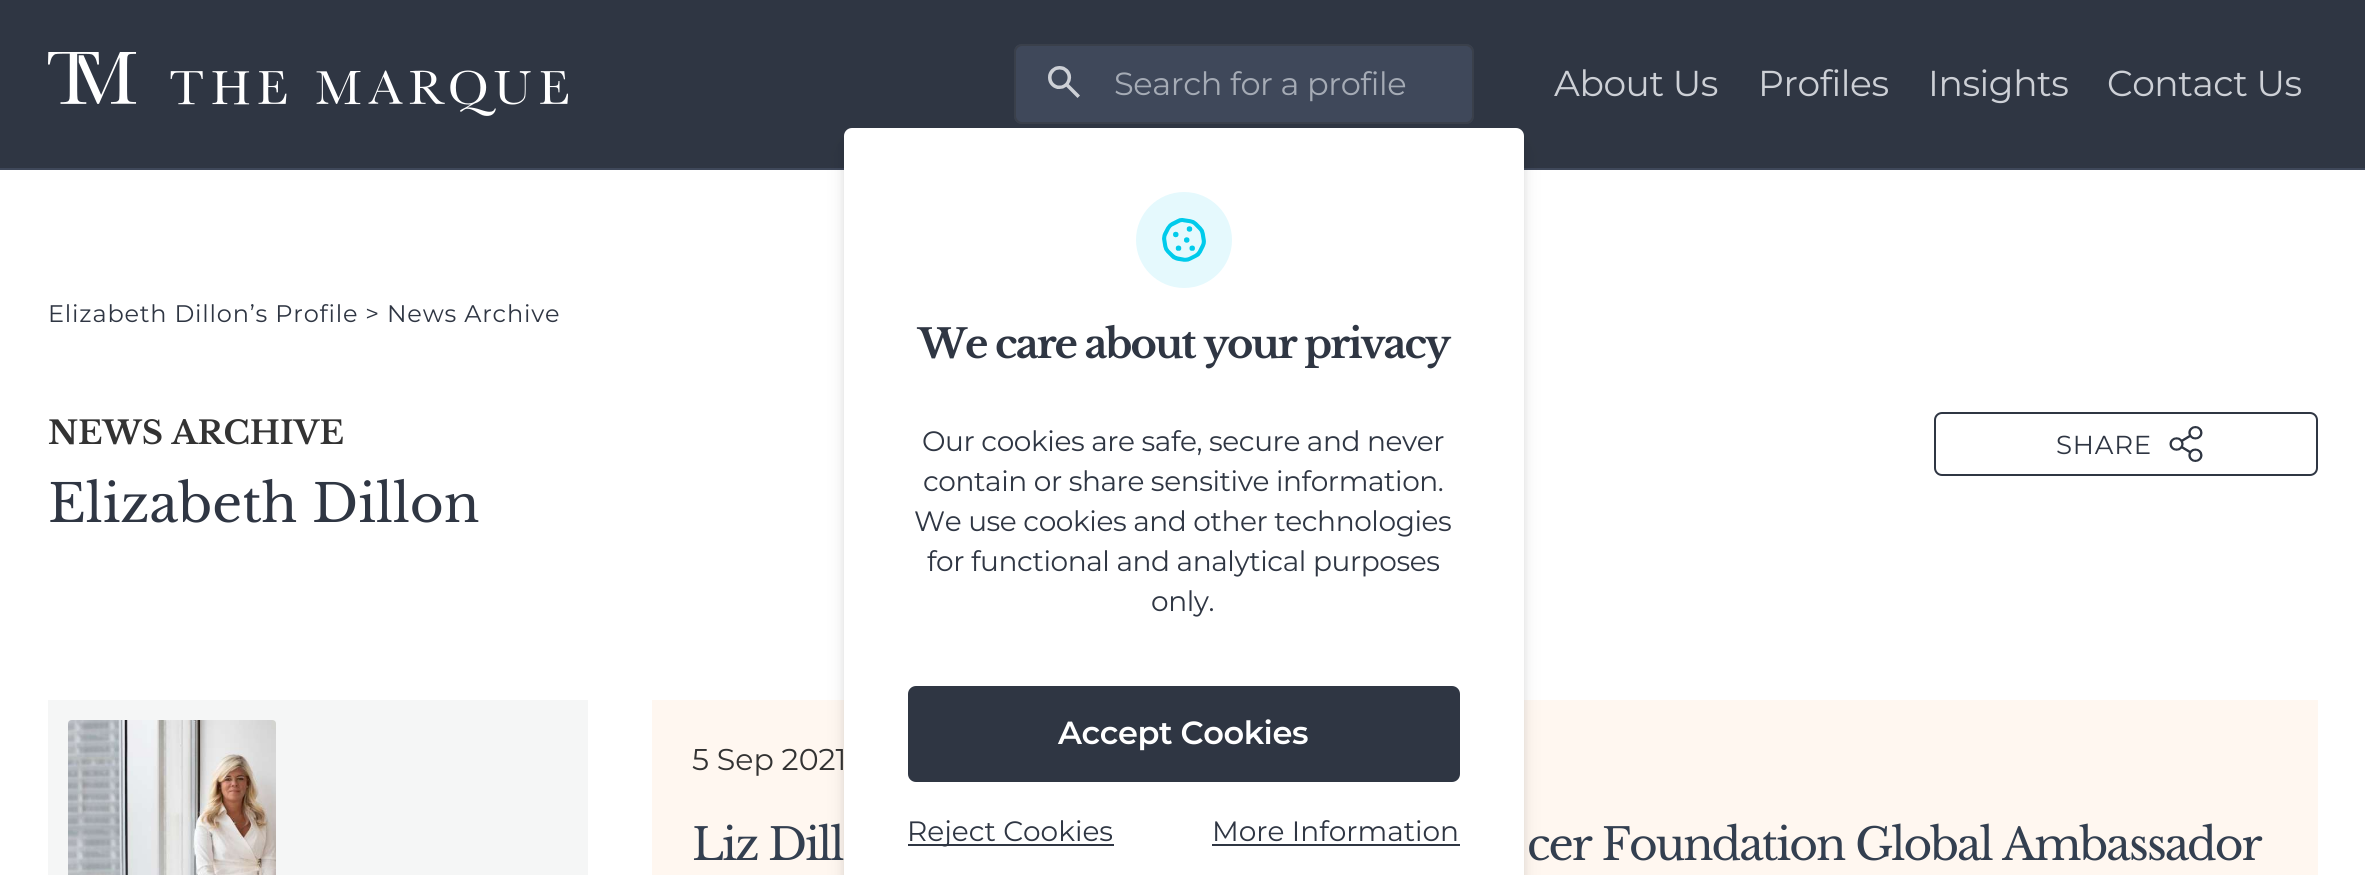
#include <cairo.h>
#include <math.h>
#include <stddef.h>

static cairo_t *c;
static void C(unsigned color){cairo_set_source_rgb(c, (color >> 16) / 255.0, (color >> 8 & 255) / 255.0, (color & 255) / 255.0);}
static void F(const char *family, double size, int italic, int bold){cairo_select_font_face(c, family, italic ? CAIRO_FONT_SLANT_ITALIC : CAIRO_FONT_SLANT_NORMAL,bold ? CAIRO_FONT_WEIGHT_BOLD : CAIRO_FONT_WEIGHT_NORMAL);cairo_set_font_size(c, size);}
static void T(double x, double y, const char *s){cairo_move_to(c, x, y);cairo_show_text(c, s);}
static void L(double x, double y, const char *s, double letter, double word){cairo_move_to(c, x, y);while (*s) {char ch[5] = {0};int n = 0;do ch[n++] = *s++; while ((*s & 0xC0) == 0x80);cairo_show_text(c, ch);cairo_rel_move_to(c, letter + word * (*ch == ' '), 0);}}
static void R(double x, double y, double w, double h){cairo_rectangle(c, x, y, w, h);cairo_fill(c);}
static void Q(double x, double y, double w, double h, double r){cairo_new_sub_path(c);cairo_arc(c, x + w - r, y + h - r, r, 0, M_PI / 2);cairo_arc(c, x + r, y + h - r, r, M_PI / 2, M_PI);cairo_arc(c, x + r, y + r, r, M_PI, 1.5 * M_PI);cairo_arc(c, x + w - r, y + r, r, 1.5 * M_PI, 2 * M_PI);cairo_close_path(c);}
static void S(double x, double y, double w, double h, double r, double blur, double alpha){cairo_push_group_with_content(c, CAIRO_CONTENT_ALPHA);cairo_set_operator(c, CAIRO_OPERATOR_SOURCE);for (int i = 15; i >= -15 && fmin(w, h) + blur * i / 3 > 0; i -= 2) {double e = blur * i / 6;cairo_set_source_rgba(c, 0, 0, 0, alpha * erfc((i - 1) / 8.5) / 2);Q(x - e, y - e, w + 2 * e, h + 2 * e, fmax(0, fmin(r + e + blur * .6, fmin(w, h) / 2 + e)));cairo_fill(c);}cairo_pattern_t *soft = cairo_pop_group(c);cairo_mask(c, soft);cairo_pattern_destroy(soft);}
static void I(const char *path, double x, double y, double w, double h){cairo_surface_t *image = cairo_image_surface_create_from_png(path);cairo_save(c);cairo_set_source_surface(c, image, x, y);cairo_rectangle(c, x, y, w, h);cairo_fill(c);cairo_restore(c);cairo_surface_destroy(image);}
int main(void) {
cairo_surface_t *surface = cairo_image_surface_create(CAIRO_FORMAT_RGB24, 2365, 875);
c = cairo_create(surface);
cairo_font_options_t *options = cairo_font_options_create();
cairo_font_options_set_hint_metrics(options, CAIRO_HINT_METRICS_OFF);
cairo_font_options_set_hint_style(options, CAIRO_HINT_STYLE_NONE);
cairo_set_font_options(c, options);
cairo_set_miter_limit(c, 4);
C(0xffffff);
cairo_paint(c);
C(0x2f3643);
R(0,0,2365,168);
C(0x3f485a);
R(0,168,2365,2);
I("1.png",48,52,520,64);
Q(1014,44,460,80,8);
cairo_fill(c);
cairo_set_source_rgba(c,0.2,0.2,0.2,0.38);
cairo_set_fill_rule(c,CAIRO_FILL_RULE_EVEN_ODD);
cairo_new_path(c);
cairo_move_to(c,1022,44);
cairo_line_to(c,1038,44);
cairo_line_to(c,1038,124);
cairo_line_to(c,1022,124);
cairo_curve_to(c,1018,124,1014,120,1014,116);
cairo_line_to(c,1014,52);
cairo_curve_to(c,1014,48,1018,44,1022,44);
cairo_close_path(c);
cairo_move_to(c,1022,46);
cairo_line_to(c,1038,46);
cairo_line_to(c,1038,122);
cairo_line_to(c,1022,122);
cairo_curve_to(c,1019,122,1016,119,1016,116);
cairo_line_to(c,1016,52);
cairo_curve_to(c,1016,49,1019,46,1022,46);
cairo_close_path(c);
cairo_fill(c);
I("2.png",1048,66,32,32);
cairo_new_path(c);
cairo_move_to(c,1038,44);
cairo_line_to(c,1466,44);
cairo_curve_to(c,1470,44,1474,48,1474,52);
cairo_line_to(c,1474,116);
cairo_curve_to(c,1474,120,1470,124,1466,124);
cairo_line_to(c,1038,124);
cairo_close_path(c);
cairo_move_to(c,1038,46);
cairo_line_to(c,1466,46);
cairo_curve_to(c,1469,46,1472,49,1472,52);
cairo_line_to(c,1472,116);
cairo_curve_to(c,1472,119,1469,122,1466,122);
cairo_line_to(c,1038,122);
cairo_close_path(c);
cairo_fill(c);
F("Montserrat",32,0,0);
C(0xa5abb5);
L(1114,95,"Search for a profile",-.4,0);
F("Montserrat",36,0,0);
C(0xcdd0d6);
L(1554,96,"About Us",-.4,0);
L(1758,96,"Profiles",-.4,0);
L(1928,96,"Insights",-.4,0);
L(2107,96,"Contact Us",-.4,0);
F("Montserrat",24,0,0);
C(0x2f3643);
L(48,322,"Elizabeth Dillon’s Profile > News Archive",.8,0);
F("Libre Baskerville",32,0,1);
C(0x333333);
T(48,444,"NEWS ARCHIVE");
F("Libre Baskerville",52,0,0);
C(0x2f3643);
T(48,522,"Elizabeth Dillon");
Q(1935,413,382,62,7);
cairo_stroke(c);
F("Montserrat",26,0,0);
L(2056,454,"SHARE",.8,0);
I("3.png",2169,426,34,36);
C(0xf5f6f6);
R(48,700,540,175);
I("4.png",68,720,208,155);
C(0xfff7f0);
R(652,700,1666,175);
F("Montserrat",30,0,0);
C(0x333333);
T(692,770,"5 Sep 2021");
F("Libre Baskerville",44,0,0);
C(0x333f50);
L(692,860,"Liz Dill",-2,0);
L(1527,860,"cer Foundation Global Ambassador",-2,0);
C(0x000000);
S(842,142,684,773,10,10,.05);
S(844,138,680,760,8,5,.1);
C(0xffffff);
Q(844,128,680,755,8);
cairo_fill(c);
C(0xe5f9fd);
cairo_arc(c,1184,240,48,0,2 * M_PI);
cairo_fill(c);
I("5.png",1162,218,44,44);
F("Libre Baskerville",40,0,1);
C(0x2f3643);
L(918,358,"We care about your privacy",-2,0);
F("Montserrat",28,0,0);
L(922,451,"Our cookies are safe, secure and never",-.4,0);
L(923,491,"contain or share sensitive information.",-.4,0);
L(914,531,"We use cookies and other technologies",-.4,0);
L(927,571,"for functional and analytical purposes",-.4,0);
L(1151,611,"only.",-.4,0);
Q(908,686,552,96,8);
cairo_fill(c);
F("Montserrat SemiBold",32,0,0);
C(0xffffff);
L(1058,744,"Accept Cookies",-.4,0);
C(0x2f3643);
R(908,844,206,2);
F("Montserrat",28,0,0);
T(907,841,"Reject Cookies");
T(1212,841,"More Information");
R(1212,844,248,2);
cairo_surface_write_to_png(surface, "o.png");
cairo_font_options_destroy(options);
cairo_destroy(c);
cairo_surface_destroy(surface);
return 0;
}
